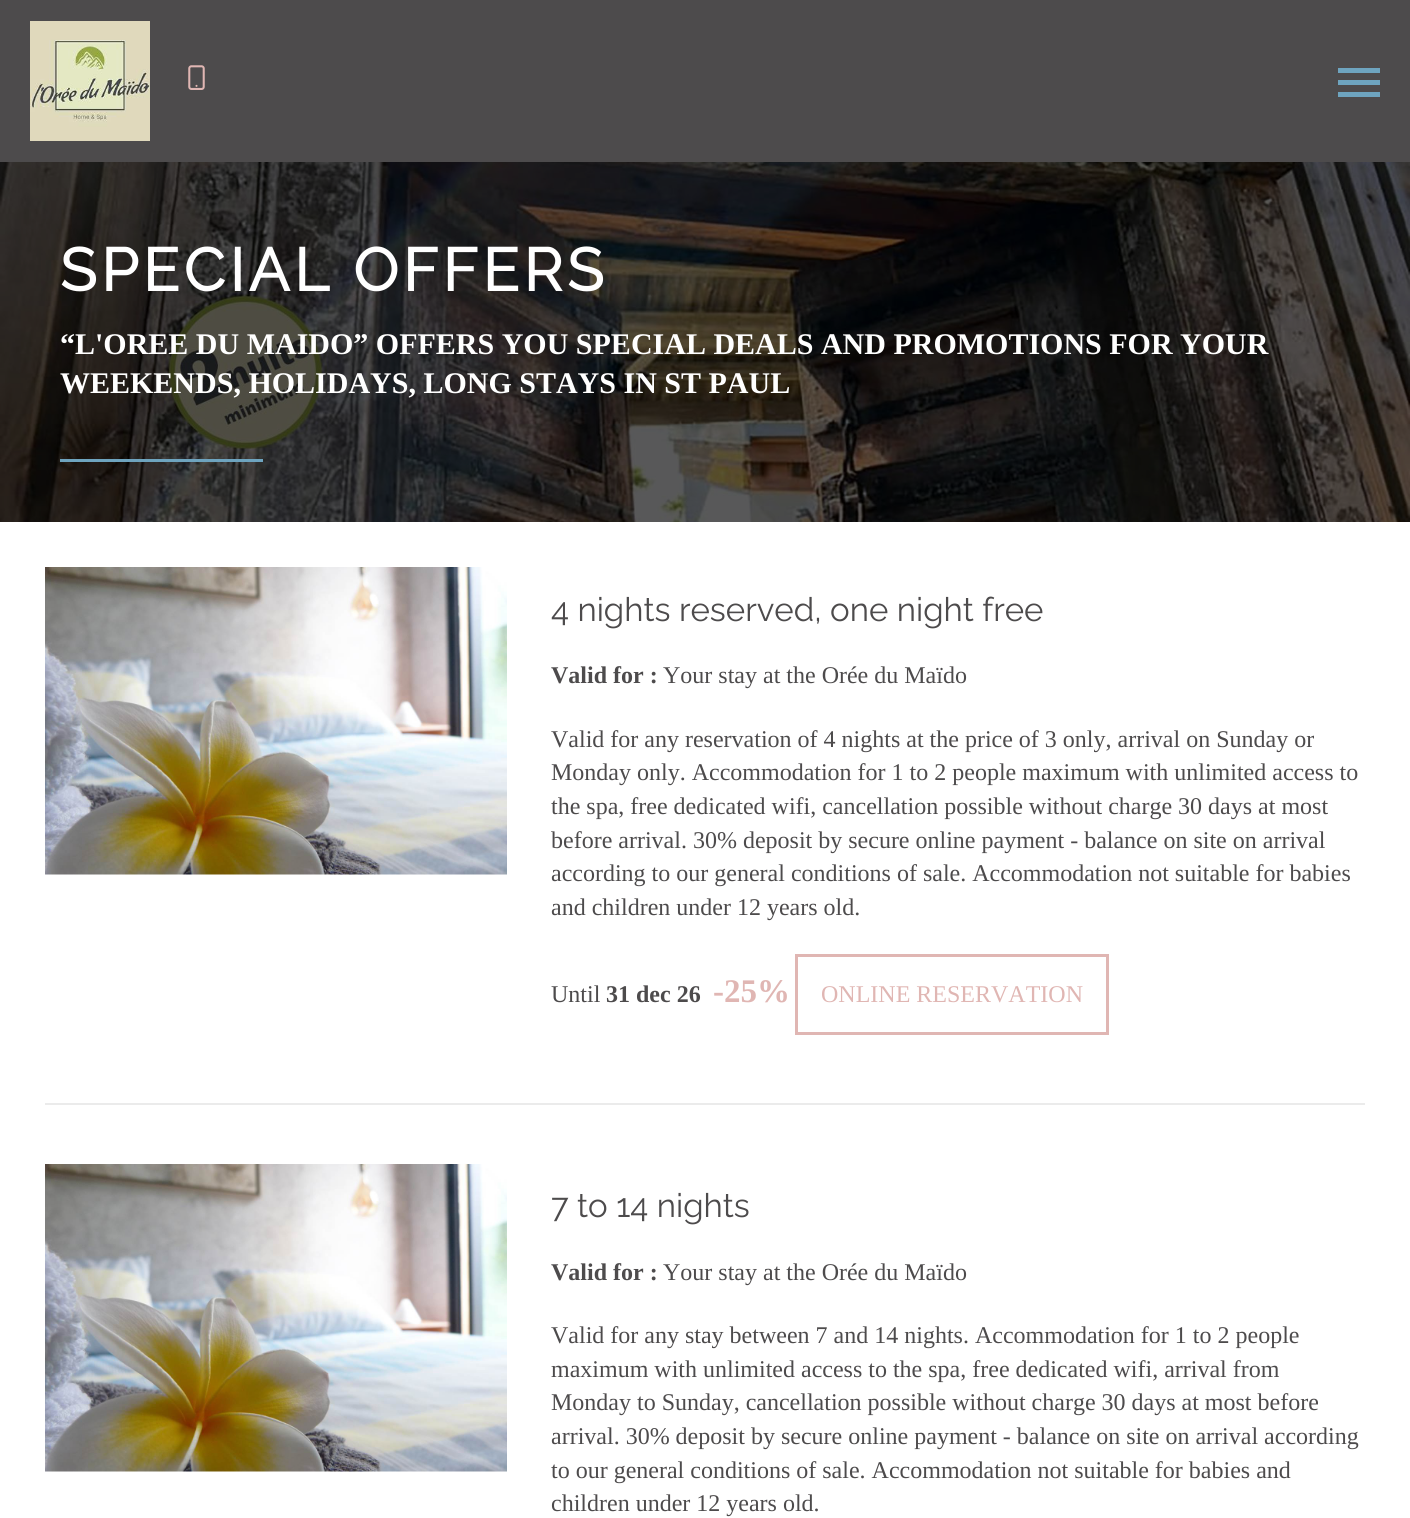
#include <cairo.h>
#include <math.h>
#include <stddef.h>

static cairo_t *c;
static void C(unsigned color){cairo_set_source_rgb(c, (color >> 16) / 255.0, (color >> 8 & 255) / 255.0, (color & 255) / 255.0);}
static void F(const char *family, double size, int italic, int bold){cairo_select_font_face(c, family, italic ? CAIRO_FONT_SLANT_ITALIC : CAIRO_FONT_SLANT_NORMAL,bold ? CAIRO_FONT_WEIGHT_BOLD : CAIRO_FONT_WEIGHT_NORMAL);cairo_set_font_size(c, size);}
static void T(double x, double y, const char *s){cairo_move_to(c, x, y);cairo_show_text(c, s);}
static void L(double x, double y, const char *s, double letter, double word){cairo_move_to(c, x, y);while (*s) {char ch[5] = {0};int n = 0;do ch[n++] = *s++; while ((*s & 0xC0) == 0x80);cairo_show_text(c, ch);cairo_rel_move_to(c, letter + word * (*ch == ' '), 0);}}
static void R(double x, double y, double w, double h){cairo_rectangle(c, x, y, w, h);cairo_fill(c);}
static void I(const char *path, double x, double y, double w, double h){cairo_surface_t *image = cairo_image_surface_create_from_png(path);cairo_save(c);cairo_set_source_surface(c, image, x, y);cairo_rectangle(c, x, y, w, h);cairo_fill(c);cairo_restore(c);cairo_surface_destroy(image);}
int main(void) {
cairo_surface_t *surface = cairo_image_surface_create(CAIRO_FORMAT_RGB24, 1410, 1518);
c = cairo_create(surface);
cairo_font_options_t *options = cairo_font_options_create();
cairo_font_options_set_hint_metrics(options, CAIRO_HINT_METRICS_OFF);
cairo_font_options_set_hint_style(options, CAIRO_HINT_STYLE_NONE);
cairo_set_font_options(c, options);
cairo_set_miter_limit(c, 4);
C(0xffffff);
cairo_paint(c);
C(0x4d4b4c);
R(0,0,1410,162);
I("1.png",30,21,120,120);
I("2.png",188,65,17,25);
C(0x6ea4bf);
R(1338,68,42,5);
R(1338,80,42,5);
R(1338,92,42,5);
I("3.png",0,162,1410,360);
F("Raleway",60,0,1);
C(0xffffff);
L(60,291,"SPECIAL OFFERS",4.5,0);
F("Liberation Serif",30,0,1);
T(60,354,"“L'OREE DU MAIDO” OFFERS YOU SPECIAL DEALS AND PROMOTIONS FOR YOUR");
T(60,393,"WEEKENDS, HOLIDAYS, LONG STAYS IN ST PAUL");
C(0x6ea4bf);
R(60,459,203,3);
I("4.png",45,567,462,308);
F("Raleway Thin",33,0,0);
C(0x4d4b4c);
T(551,621,"4 nights reserved, one night free");
F("Liberation Serif",24,0,1);
T(551,683,"Valid for :");
F("Liberation Serif",24,0,0);
T(663,683,"Your stay at the Orée du Maïdo");
T(551,747,"Valid for any reservation of 4 nights at the price of 3 only, arrival on Sunday or");
T(551,780,"Monday only. Accommodation for 1 to 2 people maximum with unlimited access to");
T(551,814,"the spa, free dedicated wifi, cancellation possible without charge 30 days at most");
T(551,848,"before arrival. 30% deposit by secure online payment - balance on site on arrival");
T(551,881,"according to our general conditions of sale. Accommodation not suitable for babies");
T(551,915,"and children under 12 years old.");
T(551,1002,"Until");
F("Liberation Serif",24,0,1);
T(606,1002,"31 dec 26");
F("Liberation Serif",33,0,1);
C(0xe0b6b3);
T(713,1002,"-25%");
cairo_rectangle(c,796.5,955.5,311,78);
cairo_set_line_width(c,3);
cairo_stroke(c);
F("Liberation Serif",24,0,0);
T(821,1002,"ONLINE RESERVATION");
C(0xebebeb);
R(45,1103,1320,2);
I("4.png",45,1164,462,308);
F("Raleway Thin",33,0,0);
C(0x4d4b4c);
T(551,1217,"7 to 14 nights");
F("Liberation Serif",24,0,1);
T(551,1280,"Valid for :");
F("Liberation Serif",24,0,0);
T(663,1280,"Your stay at the Orée du Maïdo");
T(551,1343,"Valid for any stay between 7 and 14 nights. Accommodation for 1 to 2 people");
T(551,1377,"maximum with unlimited access to the spa, free dedicated wifi, arrival from");
T(551,1410,"Monday to Sunday, cancellation possible without charge 30 days at most before");
T(551,1444,"arrival. 30% deposit by secure online payment - balance on site on arrival according");
T(551,1478,"to our general conditions of sale. Accommodation not suitable for babies and");
T(551,1511,"children under 12 years old.");
cairo_surface_write_to_png(surface, "o.png");
cairo_font_options_destroy(options);
cairo_destroy(c);
cairo_surface_destroy(surface);
return 0;
}
